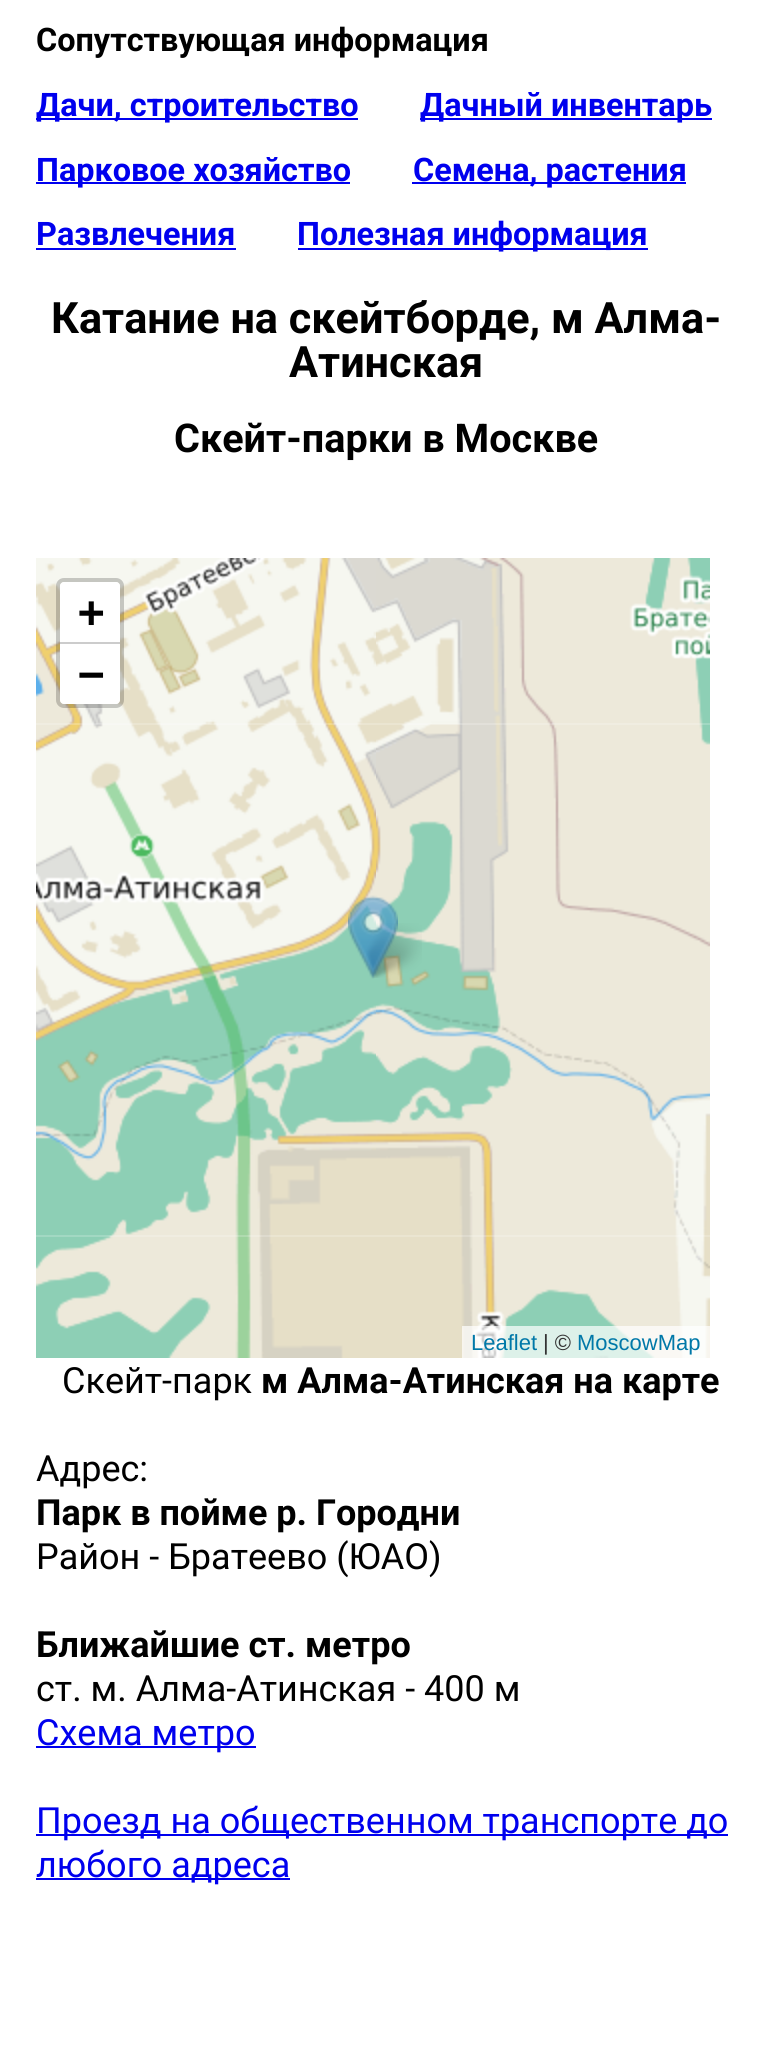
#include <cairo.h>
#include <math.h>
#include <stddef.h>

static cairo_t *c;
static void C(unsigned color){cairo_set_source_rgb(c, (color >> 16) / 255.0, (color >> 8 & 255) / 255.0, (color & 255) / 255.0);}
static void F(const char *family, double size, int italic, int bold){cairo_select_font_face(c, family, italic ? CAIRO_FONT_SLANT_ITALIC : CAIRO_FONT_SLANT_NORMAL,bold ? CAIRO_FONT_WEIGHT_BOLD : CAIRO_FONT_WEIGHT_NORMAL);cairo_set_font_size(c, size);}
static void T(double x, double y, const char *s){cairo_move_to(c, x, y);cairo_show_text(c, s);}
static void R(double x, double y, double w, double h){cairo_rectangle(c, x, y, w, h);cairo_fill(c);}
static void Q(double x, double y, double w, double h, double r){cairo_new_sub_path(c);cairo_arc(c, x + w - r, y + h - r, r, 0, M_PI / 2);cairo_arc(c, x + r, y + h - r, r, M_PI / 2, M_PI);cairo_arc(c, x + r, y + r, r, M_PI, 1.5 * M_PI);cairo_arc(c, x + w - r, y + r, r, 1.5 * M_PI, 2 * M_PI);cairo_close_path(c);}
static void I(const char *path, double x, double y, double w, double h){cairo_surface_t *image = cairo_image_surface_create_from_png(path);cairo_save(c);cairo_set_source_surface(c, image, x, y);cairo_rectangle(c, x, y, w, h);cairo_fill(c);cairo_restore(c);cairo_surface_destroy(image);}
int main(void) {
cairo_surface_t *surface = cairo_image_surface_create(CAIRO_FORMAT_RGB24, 771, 2046);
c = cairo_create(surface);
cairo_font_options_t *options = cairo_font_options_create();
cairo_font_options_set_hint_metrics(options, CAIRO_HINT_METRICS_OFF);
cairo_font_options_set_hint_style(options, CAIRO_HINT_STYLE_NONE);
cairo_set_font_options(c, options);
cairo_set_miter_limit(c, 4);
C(0xffffff);
cairo_paint(c);
F("Roboto",32.4,0,1);
C(0x000000);
T(36,51,"Сопутствующая информация");
C(0x0000ee);
R(36,118,322,2);
T(36,116,"Дачи, строительство");
R(420,118,292,2);
T(420,116,"Дачный инвентарь");
R(36,182,314,2);
T(36,181,"Парковое хозяйство");
R(412,182,274,2);
T(413,181,"Семена, растения");
T(36,245,"Развлечения");
R(36,248,200,2);
R(298,248,350,2);
T(297,245,"Полезная информация");
F("Roboto",43.25,0,1);
C(0x000000);
T(51,333,"Катание на скейтборде, м Алма-");
T(289,377,"Атинская");
F("Roboto",39.6,0,1);
T(174,452,"Cкейт-парки в Москве");
I("3.png",36,723,340,514);
I("1.png",36,558,340,167);
I("4.png",376,723,334,514);
I("2.png",376,558,334,167);
I("5.png",36,1235,340,123);
I("6.png",376,1235,334,123);
I("8.png",366,923,56,55);
I("7.png",348,895,50,84);
Q(58,580,64,126,6);
cairo_set_source_rgba(c,0,0,0,0.2);
cairo_set_line_width(c,4);
cairo_stroke(c);
C(0xffffff);
cairo_new_path(c);
cairo_move_to(c,64,582);
cairo_line_to(c,116,582);
cairo_curve_to(c,118,582,120,584,120,586);
cairo_line_to(c,120,644);
cairo_line_to(c,60,644);
cairo_line_to(c,60,586);
cairo_curve_to(c,60,584,62,582,64,582);
cairo_close_path(c);
cairo_fill(c);
C(0xcccccc);
R(60,642,60,2);
F("DejaVu Sans Mono",44,0,1);
C(0x000000);
T(78,627,"+");
C(0xffffff);
cairo_new_path(c);
cairo_move_to(c,60,644);
cairo_line_to(c,120,644);
cairo_line_to(c,120,700);
cairo_curve_to(c,120,702,118,704,116,704);
cairo_line_to(c,64,704);
cairo_curve_to(c,62,704,60,702,60,700);
cairo_close_path(c);
cairo_fill(c);
C(0x000000);
T(78,689,"−");
cairo_set_source_rgba(c,1,1,1,0.7);
R(462,1326,248,32);
F("Liberation Sans",22,0,0);
C(0x0078a8);
T(471,1350,"Leaflet");
C(0x333333);
T(543,1350,"| ©");
C(0x0078a8);
T(577,1350,"MoscowMap");
F("Roboto",36,0,0);
C(0x000000);
T(62,1393,"Cкейт-парк");
F("Roboto",36,0,1);
T(261,1393,"м Алма-Атинская на карте");
F("Roboto",36,0,0);
T(36,1481,"Адрес:");
F("Roboto",36,0,1);
T(36,1525,"Парк в пойме р. Городни");
F("Roboto",36,0,0);
T(36,1569,"Район - Братеево (ЮАО)");
F("Roboto",36,0,1);
T(36,1657,"Ближайшие ст. метро");
F("Roboto",36,0,0);
T(36,1701,"ст. м. Алма-Атинская - 400 м");
C(0x0000ee);
R(36,1746,220,2);
T(36,1745,"Схема метро");
R(36,1834,692,2);
T(36,1833,"Проезд на общественном транспорте до");
R(36,1878,254,2);
T(36,1877,"любого адреса");
cairo_surface_write_to_png(surface, "o.png");
cairo_font_options_destroy(options);
cairo_destroy(c);
cairo_surface_destroy(surface);
return 0;
}
